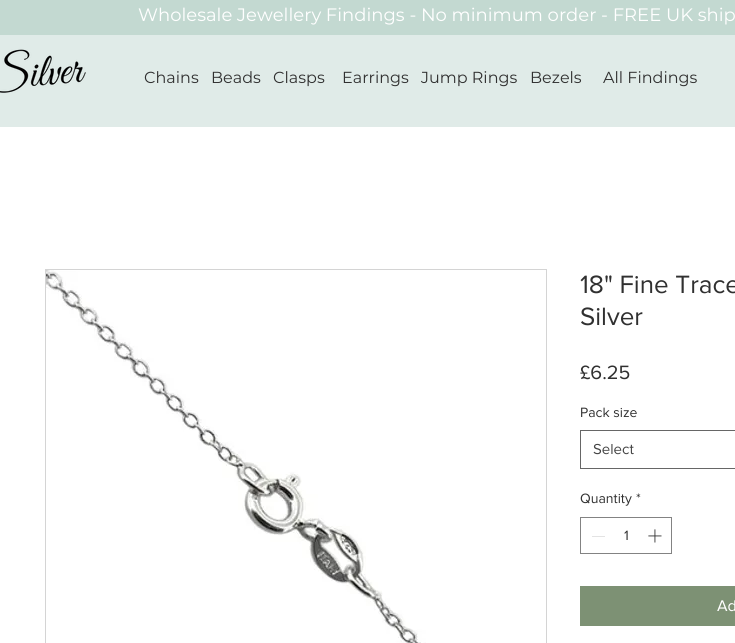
#include <cairo.h>
#include <math.h>
#include <stddef.h>

static cairo_t *c;
static void C(unsigned color){cairo_set_source_rgb(c, (color >> 16) / 255.0, (color >> 8 & 255) / 255.0, (color & 255) / 255.0);}
static void F(const char *family, double size, int italic, int bold){cairo_select_font_face(c, family, italic ? CAIRO_FONT_SLANT_ITALIC : CAIRO_FONT_SLANT_NORMAL,bold ? CAIRO_FONT_WEIGHT_BOLD : CAIRO_FONT_WEIGHT_NORMAL);cairo_set_font_size(c, size);}
static void T(double x, double y, const char *s){cairo_move_to(c, x, y);cairo_show_text(c, s);}
static void R(double x, double y, double w, double h){cairo_rectangle(c, x, y, w, h);cairo_fill(c);}
static void I(const char *path, double x, double y, double w, double h){cairo_surface_t *image = cairo_image_surface_create_from_png(path);cairo_save(c);cairo_set_source_surface(c, image, x, y);cairo_rectangle(c, x, y, w, h);cairo_fill(c);cairo_restore(c);cairo_surface_destroy(image);}
int main(void) {
cairo_surface_t *surface = cairo_image_surface_create(CAIRO_FORMAT_RGB24, 735, 643);
c = cairo_create(surface);
cairo_font_options_t *options = cairo_font_options_create();
cairo_font_options_set_hint_metrics(options, CAIRO_HINT_METRICS_OFF);
cairo_font_options_set_hint_style(options, CAIRO_HINT_STYLE_NONE);
cairo_set_font_options(c, options);
cairo_set_miter_limit(c, 4);
C(0xffffff);
cairo_paint(c);
C(0xc3d9d1);
R(0,0,735,35);
F("Montserrat",18,0,0);
C(0xffffff);
T(138,21,"Wholesale Jewellery Findings - No minimum order - FREE UK ship");
C(0xe0ebe8);
R(0,35,735,92);
I("1.png",0,49,86,44);
F("Montserrat",16,0,0);
C(0x303030);
T(144,83,"Chains");
T(211,83,"Beads");
T(273,83,"Clasps");
T(342,83,"Earrings");
T(421,83,"Jump Rings");
T(530,83,"Bezels");
T(603,83,"All Findings");
cairo_rectangle(c,45.5,269.5,501,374);
C(0xd4d4d4);
cairo_set_line_width(c,1);
cairo_stroke(c);
I("2.png",46,270,380,373);
F("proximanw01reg",26,0,0);
C(0x303030);
T(580,293,"18\" Fine Trace");
T(580,325,"Silver");
F("proximanw01reg",20,0,0);
T(580,379,"£6.25");
F("proximanw01reg",14,0,0);
T(580,417,"Pack size");
cairo_rectangle(c,580.5,430.5,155,38);
C(0x666666);
cairo_stroke(c);
F("proximanw01reg",15,0,0);
C(0x444444);
T(593,454,"Select");
F("proximanw01reg",14,0,0);
C(0x303030);
T(580,503,"Quantity");
T(636,503,"*");
cairo_rectangle(c,580.5,517.5,91,36);
C(0x838383);
cairo_stroke(c);
C(0xe3e3e3);
R(592,536,13,1);
C(0x303030);
T(624,540,"1");
I("3.png",648,529,14,14);
C(0x7d9174);
R(580,586,155,40);
F("proximanw01reg",16,0,0);
C(0xffffff);
T(717,611,"Ad");
cairo_surface_write_to_png(surface, "o.png");
cairo_font_options_destroy(options);
cairo_destroy(c);
cairo_surface_destroy(surface);
return 0;
}
